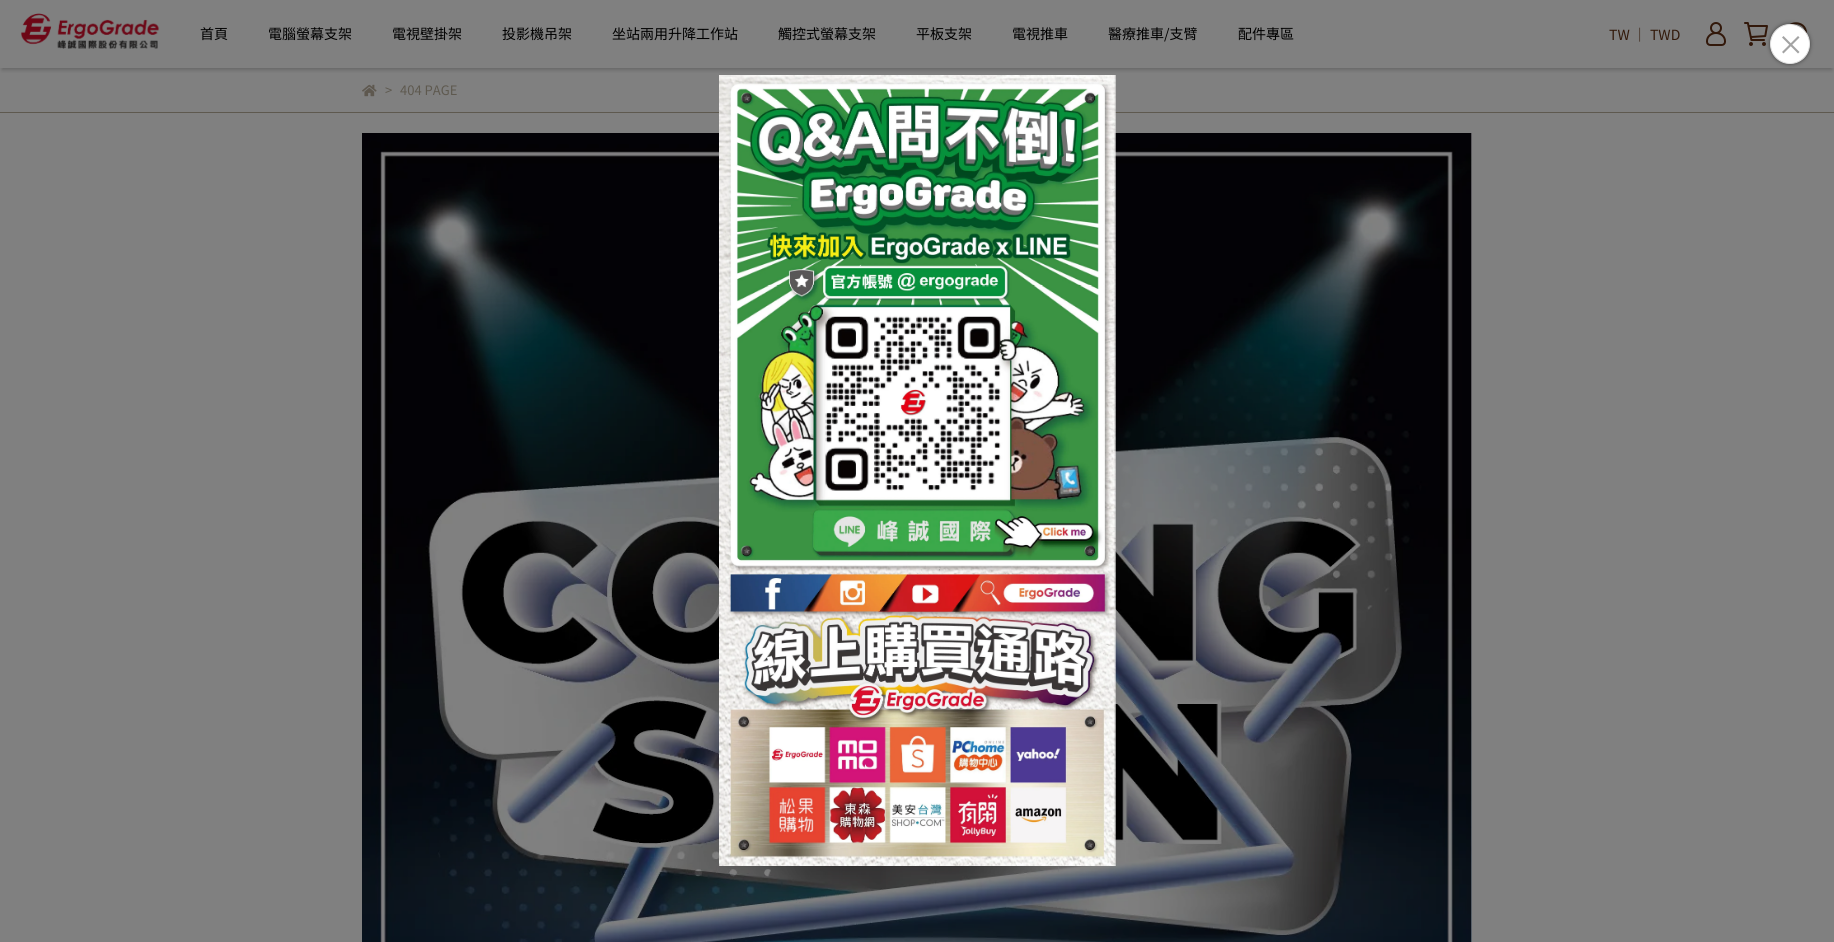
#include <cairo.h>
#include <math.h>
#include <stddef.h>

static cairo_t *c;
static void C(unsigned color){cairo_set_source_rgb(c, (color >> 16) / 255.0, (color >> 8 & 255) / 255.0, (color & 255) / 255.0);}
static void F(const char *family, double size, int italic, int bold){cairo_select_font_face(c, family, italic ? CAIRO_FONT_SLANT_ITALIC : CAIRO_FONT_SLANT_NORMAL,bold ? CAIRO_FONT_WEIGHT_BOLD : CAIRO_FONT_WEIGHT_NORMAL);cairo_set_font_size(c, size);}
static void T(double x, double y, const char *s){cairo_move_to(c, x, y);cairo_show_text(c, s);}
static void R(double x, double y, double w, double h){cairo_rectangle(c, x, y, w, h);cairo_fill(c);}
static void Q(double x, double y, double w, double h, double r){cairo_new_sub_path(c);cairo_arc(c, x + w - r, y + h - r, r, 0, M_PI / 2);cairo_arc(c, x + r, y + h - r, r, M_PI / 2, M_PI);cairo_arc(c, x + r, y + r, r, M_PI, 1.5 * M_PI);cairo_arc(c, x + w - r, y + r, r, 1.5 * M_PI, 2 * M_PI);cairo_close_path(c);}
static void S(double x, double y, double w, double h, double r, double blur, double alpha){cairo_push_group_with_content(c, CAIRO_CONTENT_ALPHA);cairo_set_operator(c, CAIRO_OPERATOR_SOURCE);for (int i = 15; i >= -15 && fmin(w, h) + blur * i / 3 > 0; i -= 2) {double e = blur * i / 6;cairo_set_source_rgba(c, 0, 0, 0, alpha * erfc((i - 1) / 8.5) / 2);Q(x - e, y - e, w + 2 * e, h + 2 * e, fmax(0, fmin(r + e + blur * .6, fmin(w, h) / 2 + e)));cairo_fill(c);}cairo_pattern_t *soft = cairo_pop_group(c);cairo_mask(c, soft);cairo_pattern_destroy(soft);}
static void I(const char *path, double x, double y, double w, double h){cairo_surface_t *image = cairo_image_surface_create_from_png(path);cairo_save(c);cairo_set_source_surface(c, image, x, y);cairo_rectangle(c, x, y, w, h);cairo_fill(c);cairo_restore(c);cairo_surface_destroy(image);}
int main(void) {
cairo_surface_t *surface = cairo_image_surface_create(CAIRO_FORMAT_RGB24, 1834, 942);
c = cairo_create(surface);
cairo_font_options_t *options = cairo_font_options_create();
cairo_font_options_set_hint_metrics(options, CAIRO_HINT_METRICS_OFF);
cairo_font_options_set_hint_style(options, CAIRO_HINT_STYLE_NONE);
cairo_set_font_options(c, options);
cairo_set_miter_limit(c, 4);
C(0x808080);
cairo_paint(c);
cairo_save(c);
cairo_rectangle(c,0,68,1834,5);
cairo_clip(c);
C(0x000000);
S(2,6,1830,64,0,2,.2);
cairo_restore(c);
I("4.png",1744,22,24,24);
cairo_new_path(c);
cairo_move_to(c,1806,33);
cairo_curve_to(c,1806,46,1786,46,1786,33);
cairo_curve_to(c,1786,20,1806,20,1806,33);
cairo_close_path(c);
C(0x32190a);
cairo_set_line_cap(c,CAIRO_LINE_CAP_ROUND);
cairo_set_line_join(c,CAIRO_LINE_JOIN_ROUND);
cairo_stroke(c);
C(0x000000);
S(1770,24,40,40,20,2,.5);
C(0xffffff);
cairo_arc(c,1790,44,19.5,0,2 * M_PI);
cairo_fill_preserve(c);
C(0xe2e2e2);
cairo_set_line_width(c,1);
cairo_set_line_cap(c,CAIRO_LINE_CAP_BUTT);
cairo_set_line_join(c,CAIRO_LINE_JOIN_MITER);
cairo_stroke(c);
C(0xa3a3a3);
cairo_new_path(c);
cairo_move_to(c,1783.5,36);
cairo_line_to(c,1799.5,52);
cairo_line_to(c,1798,53.5);
cairo_line_to(c,1782,37.5);
cairo_close_path(c);
cairo_fill(c);
cairo_new_path(c);
cairo_move_to(c,1782,52);
cairo_line_to(c,1798,36);
cairo_line_to(c,1799.5,37.5);
cairo_line_to(c,1783.5,53.5);
cairo_close_path(c);
cairo_fill(c);
C(0x5e594f);
R(0,112,1834,1);
I("6.png",362,133,1110,809);
I("1.png",719,75,397,791);
I("2.png",21,13,139,36);
F("Noto Sans TC",14,0,0);
C(0x000000);
T(200,39,"首頁");
T(268,39,"電腦螢幕支架");
T(392,39,"電視壁掛架");
T(502,39,"投影機吊架");
T(612,39,"坐站兩用升降工作站");
T(778,39,"觸控式螢幕支架");
T(916,39,"平板支架");
T(1012,39,"電視推車");
T(1108,39,"醫療推車/支臂");
T(1238,39,"配件專區");
C(0x32190a);
T(1609,40,"TW ｜ TWD");
I("3.png",1706,22,20,24);
I("5.png",362,84,15,13);
F("Noto Sans TC",13,0,0);
C(0x5e594f);
T(385,95,">");
T(400,95,"404 PAGE");
cairo_surface_write_to_png(surface, "o.png");
cairo_font_options_destroy(options);
cairo_destroy(c);
cairo_surface_destroy(surface);
return 0;
}
